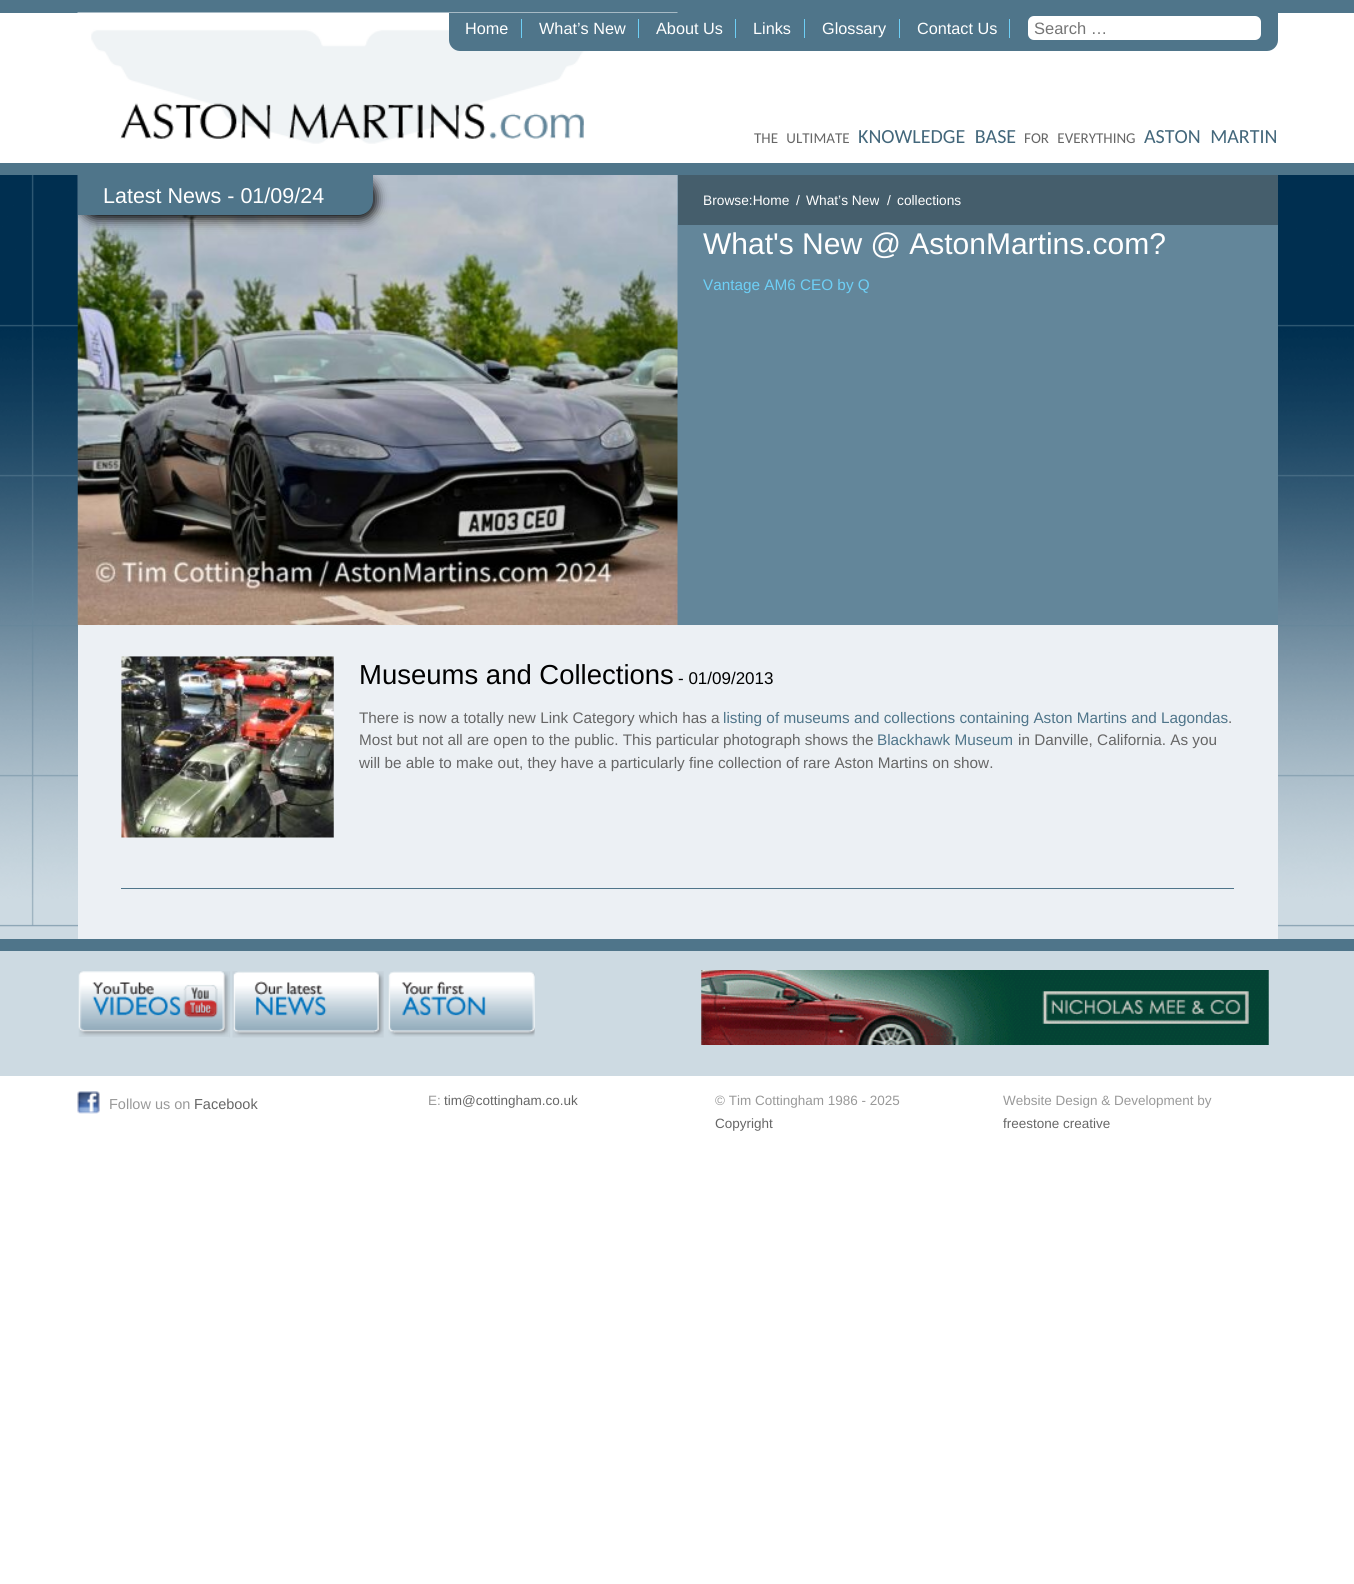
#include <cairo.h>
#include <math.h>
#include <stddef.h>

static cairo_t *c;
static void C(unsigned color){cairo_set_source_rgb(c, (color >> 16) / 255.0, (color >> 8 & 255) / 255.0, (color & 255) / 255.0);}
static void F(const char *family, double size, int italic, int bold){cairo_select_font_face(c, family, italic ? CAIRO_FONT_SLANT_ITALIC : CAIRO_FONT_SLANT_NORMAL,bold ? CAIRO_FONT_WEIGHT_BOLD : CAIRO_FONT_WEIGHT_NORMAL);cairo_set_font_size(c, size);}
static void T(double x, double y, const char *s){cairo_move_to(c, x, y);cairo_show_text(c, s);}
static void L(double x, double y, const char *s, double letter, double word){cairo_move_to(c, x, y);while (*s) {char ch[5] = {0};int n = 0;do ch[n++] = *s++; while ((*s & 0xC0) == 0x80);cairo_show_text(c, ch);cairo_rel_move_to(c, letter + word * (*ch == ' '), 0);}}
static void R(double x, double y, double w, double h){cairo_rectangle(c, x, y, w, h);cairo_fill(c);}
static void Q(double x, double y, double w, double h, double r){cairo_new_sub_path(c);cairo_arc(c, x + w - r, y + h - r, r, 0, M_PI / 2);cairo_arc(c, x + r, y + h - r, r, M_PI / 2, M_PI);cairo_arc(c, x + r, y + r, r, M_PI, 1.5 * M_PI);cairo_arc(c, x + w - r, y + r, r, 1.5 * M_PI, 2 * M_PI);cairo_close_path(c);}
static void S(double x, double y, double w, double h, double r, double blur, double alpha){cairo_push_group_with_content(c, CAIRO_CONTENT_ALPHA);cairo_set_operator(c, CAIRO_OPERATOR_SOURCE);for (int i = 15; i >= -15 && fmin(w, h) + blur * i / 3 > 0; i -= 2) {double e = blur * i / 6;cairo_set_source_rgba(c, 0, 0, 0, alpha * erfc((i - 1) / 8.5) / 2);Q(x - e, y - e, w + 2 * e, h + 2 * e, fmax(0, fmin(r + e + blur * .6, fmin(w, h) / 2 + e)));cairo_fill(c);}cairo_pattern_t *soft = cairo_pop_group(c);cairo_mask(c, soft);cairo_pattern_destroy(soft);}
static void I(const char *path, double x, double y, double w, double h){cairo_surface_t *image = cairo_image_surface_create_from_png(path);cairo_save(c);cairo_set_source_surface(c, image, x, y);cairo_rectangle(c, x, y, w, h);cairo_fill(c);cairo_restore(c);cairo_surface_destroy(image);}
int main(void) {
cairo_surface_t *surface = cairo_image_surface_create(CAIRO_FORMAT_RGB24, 1354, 1584);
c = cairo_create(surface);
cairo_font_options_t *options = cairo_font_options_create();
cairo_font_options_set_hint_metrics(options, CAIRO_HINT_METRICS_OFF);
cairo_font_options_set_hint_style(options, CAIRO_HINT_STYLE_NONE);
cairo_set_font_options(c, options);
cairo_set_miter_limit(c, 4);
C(0xffffff);
cairo_paint(c);
C(0x4f758a);
R(0,0,1354,13);
I("1.png",77,12,601,132);
cairo_new_path(c);
cairo_move_to(c,449,13);
cairo_line_to(c,1278,13);
cairo_line_to(c,1278,40);
cairo_curve_to(c,1278,46,1273,51,1267,51);
cairo_line_to(c,460,51);
cairo_curve_to(c,454,51,449,46,449,40);
cairo_close_path(c);
cairo_fill(c);
F("Liberation Sans",16.25,0,0);
C(0xffffff);
T(465,34,"Home");
C(0x6dcff6);
R(521,19,1,19);
C(0xffffff);
T(539,34,"What’s New");
C(0x6dcff6);
R(638,19,1,19);
C(0xffffff);
T(656,34,"About Us");
C(0x6dcff6);
R(735,19,1,19);
C(0xffffff);
T(753,34,"Links");
C(0x6dcff6);
R(804,19,1,19);
C(0xffffff);
T(822,34,"Glossary");
C(0x6dcff6);
R(899,19,1,19);
C(0xffffff);
T(917,34,"Contact Us");
C(0x6dcff6);
R(1009,19,1,19);
C(0xffffff);
Q(1028,16,233,24,6);
cairo_fill(c);
F("Liberation Sans",16.5,0,0);
C(0x757575);
T(1034,34,"Search …");
F("Carlito",15,0,0);
C(0x666666);
L(754,143,"THE ULTIMATE",0,5);
F("Carlito",20,0,0);
C(0x43677b);
L(858,143,"KNOWLEDGE BASE",0,5);
F("Carlito",15,0,0);
C(0x666666);
L(1024,143,"FOR EVERYTHING",0,5);
F("Carlito",20,0,0);
C(0x43677b);
L(1144,143,"ASTON MARTIN",0,5);
C(0xcddae2);
R(0,926,1354,13);
I("2.png",0,175,1354,752);
C(0x4f758a);
R(0,163,1354,12);
R(0,939,1354,12);
C(0x63869a);
R(677,175,601,450);
I("3.png",77,175,601,450);
cairo_save(c);
cairo_rectangle(c,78,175,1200,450);
cairo_clip(c);
C(0x000000);
S(81,179,295,40,15,6,1);
cairo_restore(c);
C(0x4f758a);
cairo_new_path(c);
cairo_move_to(c,78,175);
cairo_line_to(c,373,175);
cairo_line_to(c,373,200);
cairo_curve_to(c,373,208.5,366.5,215,358,215);
cairo_line_to(c,78,215);
cairo_close_path(c);
cairo_fill(c);
F("Liberation Sans",21.5,0,0);
C(0xffffff);
T(103,203,"Latest News - 01/09/24");
C(0x455e6c);
R(678,175,600,50);
F("Liberation Sans",13.75,0,0);
C(0xffffff);
T(703,205,"Browse:Home");
T(796,205,"/");
T(806,205,"What’s New");
T(887,205,"/");
T(897,205,"collections");
F("Liberation Sans",30,0,0);
T(703,254,"What's New @ AstonMartins.com?");
F("Liberation Sans",15.3,0,0);
C(0x6dcff6);
T(703,290,"Vantage AM6 CEO by Q");
C(0xecf0f4);
R(78,625,1200,314);
C(0x4f758a);
R(121,888,1113,1);
I("4.png",121,656,213,182);
F("Liberation Sans",27.5,0,0);
C(0x000000);
T(359,684,"Museums and Collections");
F("Liberation Sans",17,0,0);
T(678,684,"- 01/09/2013");
F("Liberation Sans",15.3,0,0);
C(0x666666);
T(359,723,"There is now a totally new Link Category which has a");
C(0x4f758a);
T(723,723,"listing of museums and collections containing Aston Martins and Lagondas");
C(0x666666);
T(1228,723,".");
T(359,745,"Most but not all are open to the public. This particular photograph shows the");
C(0x4f758a);
T(877,745,"Blackhawk Museum");
C(0x666666);
T(1018,745,"in Danville, California. As you");
T(359,768,"will be able to make out, they have a particularly fine collection of rare Aston Martins on show.");
C(0xcddae2);
R(0,951,1354,125);
I("5.png",78,971,151,66);
I("6.png",229,971,155,67);
I("7.png",388,971,147,66);
I("8.png",701,970,568,75);
I("9.png",77,1091,23,23);
F("Liberation Sans",14.5,0,0);
C(0x999999);
T(109,1109,"Follow us on");
C(0x666666);
T(194,1109,"Facebook");
F("Liberation Sans",13.5,0,0);
C(0x999999);
T(428,1105,"E:");
C(0x666666);
T(444,1105,"tim@cottingham.co.uk");
C(0x999999);
T(715,1105,"© Tim Cottingham 1986 - 2025");
C(0x666666);
T(715,1128,"Copyright");
C(0x999999);
T(1003,1105,"Website Design & Development by");
C(0x666666);
T(1003,1128,"freestone creative");
cairo_surface_write_to_png(surface, "o.png");
cairo_font_options_destroy(options);
cairo_destroy(c);
cairo_surface_destroy(surface);
return 0;
}
